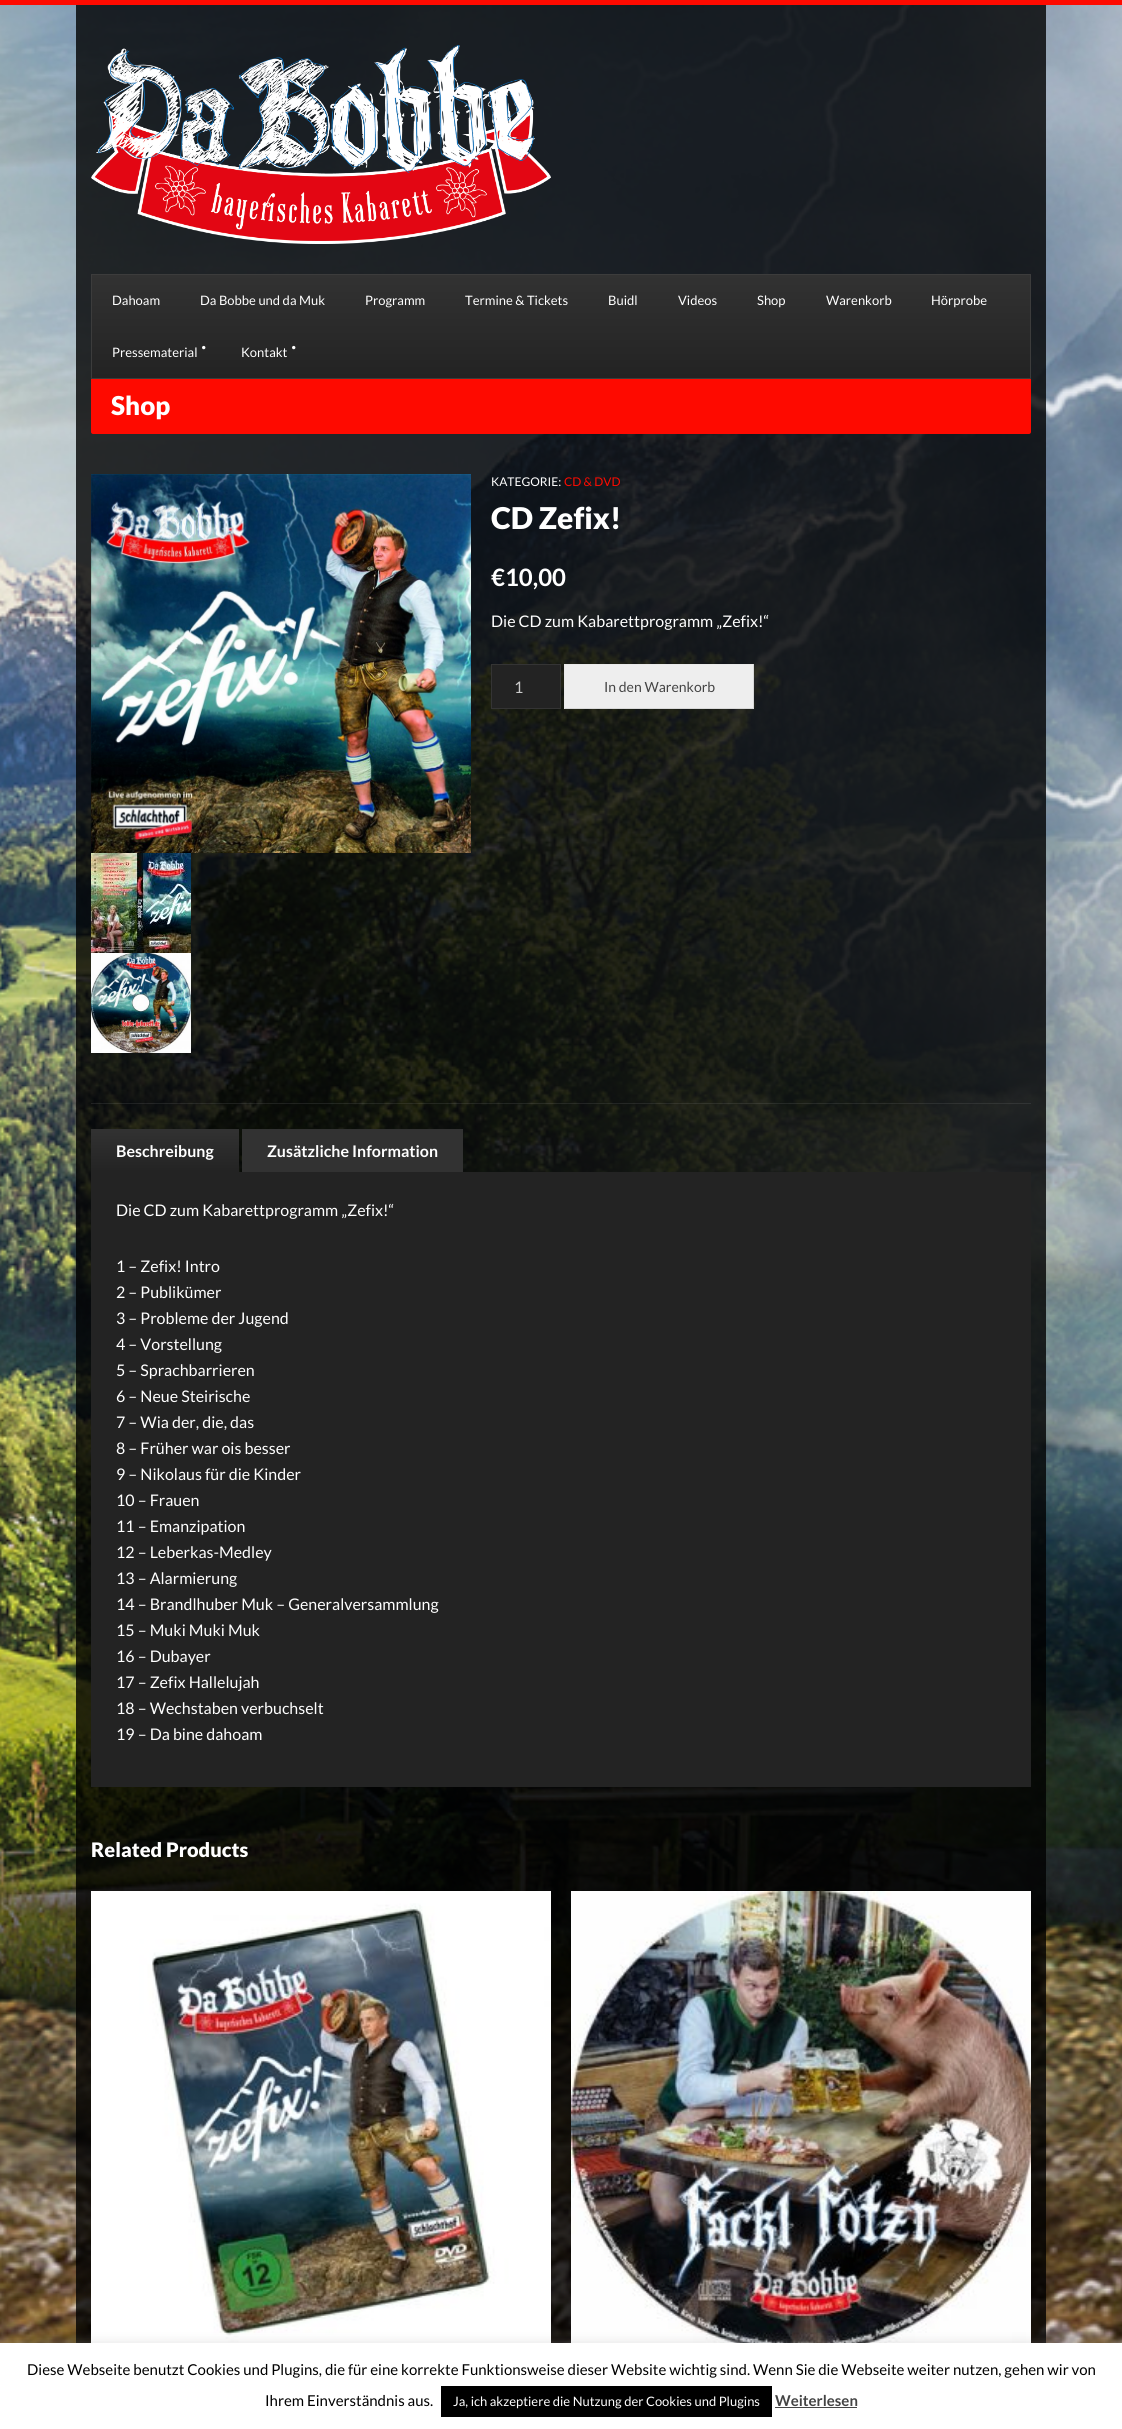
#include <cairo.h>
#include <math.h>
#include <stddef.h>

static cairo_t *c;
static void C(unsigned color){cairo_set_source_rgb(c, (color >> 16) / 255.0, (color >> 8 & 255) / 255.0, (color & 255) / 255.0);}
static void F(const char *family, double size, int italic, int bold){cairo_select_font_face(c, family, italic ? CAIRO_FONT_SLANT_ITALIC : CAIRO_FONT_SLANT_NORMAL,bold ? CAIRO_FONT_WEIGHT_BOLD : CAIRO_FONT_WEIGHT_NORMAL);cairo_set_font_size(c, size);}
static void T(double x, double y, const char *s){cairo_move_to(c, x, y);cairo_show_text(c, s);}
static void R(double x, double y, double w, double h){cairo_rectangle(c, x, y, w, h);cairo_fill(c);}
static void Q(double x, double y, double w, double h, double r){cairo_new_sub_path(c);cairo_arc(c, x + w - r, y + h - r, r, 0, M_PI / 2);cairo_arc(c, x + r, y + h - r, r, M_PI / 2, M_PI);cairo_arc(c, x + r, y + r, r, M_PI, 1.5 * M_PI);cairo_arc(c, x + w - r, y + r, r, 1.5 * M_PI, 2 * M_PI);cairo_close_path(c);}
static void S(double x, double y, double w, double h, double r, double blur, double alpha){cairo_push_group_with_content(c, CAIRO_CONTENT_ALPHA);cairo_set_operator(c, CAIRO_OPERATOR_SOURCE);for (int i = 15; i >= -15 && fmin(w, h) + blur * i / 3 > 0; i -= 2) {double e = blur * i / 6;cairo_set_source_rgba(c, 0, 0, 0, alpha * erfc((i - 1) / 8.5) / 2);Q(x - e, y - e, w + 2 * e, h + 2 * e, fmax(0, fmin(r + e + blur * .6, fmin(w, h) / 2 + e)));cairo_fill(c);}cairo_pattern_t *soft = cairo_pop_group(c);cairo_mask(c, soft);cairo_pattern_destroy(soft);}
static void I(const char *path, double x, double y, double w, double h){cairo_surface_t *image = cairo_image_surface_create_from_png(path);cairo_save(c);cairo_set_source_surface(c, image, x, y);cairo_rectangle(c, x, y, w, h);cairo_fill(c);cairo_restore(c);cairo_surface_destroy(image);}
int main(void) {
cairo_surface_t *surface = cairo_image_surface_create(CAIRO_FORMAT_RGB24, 1122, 2429);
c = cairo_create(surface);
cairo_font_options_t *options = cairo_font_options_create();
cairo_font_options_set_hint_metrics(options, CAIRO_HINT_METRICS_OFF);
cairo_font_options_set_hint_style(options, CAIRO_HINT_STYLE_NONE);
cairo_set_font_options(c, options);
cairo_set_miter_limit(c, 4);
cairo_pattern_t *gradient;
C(0xffffff);
cairo_paint(c);
I("1.png",0,5,1122,2338);
C(0xfe0a00);
R(0,0,1122,5);
cairo_set_source_rgba(c,0,0,0,0.8);
R(76,5,970,2338);
I("2.png",91,45,460,199);
gradient = cairo_pattern_create_linear(561,275,561,378);
cairo_pattern_add_color_stop_rgba(gradient,0,0.196,0.196,0.196,1);
cairo_pattern_add_color_stop_rgba(gradient,1,0.137,0.137,0.137,1);
cairo_set_source(c,gradient);
cairo_pattern_destroy(gradient);
R(92,275,938,103);
cairo_rectangle(c,91.5,274.5,939,104);
C(0x3c3c3c);
cairo_set_line_width(c,1);
cairo_stroke(c);
F("Lato",13,0,0);
C(0xffffff);
T(112,305,"Dahoam");
T(200,305,"Da Bobbe und da Muk");
T(365,305,"Programm");
T(465,305,"Termine & Tickets");
T(608,305,"Buidl");
T(678,305,"Videos");
T(757,305,"Shop");
T(826,305,"Warenkorb");
T(931,305,"Hörprobe");
T(112,357,"Pressematerial");
I("3.png",202,345,4,5);
T(241,357,"Kontakt");
I("3.png",292,345,4,5);
C(0xfe0a00);
cairo_new_path(c);
cairo_move_to(c,91,379);
cairo_line_to(c,1031,379);
cairo_line_to(c,1031,432);
cairo_curve_to(c,1031,433,1030,434,1029,434);
cairo_line_to(c,93,434);
cairo_curve_to(c,92,434,91,433,91,432);
cairo_close_path(c);
cairo_fill(c);
F("Lato Black",26,0,0);
C(0xffffff);
T(111,415,"Shop");
I("4.png",91,474,380,379);
I("5.png",91,853,100,100);
I("6.png",91,953,100,100);
F("Lato",12,0,0);
T(491,486,"KATEGORIE:");
C(0xfe0a00);
T(564,486,"CD & DVD");
F("Lato Black",30,0,0);
C(0xffffff);
T(491,529,"CD Zefix!");
F("Lato",24,0,1);
T(491,586,"€10,00");
F("Lato",16,0,0);
T(491,627,"Die CD zum Kabarettprogramm „Zefix!“");
C(0x232323);
cairo_rectangle(c,491.5,664.5,69,44);
cairo_fill_preserve(c);
C(0x343434);
cairo_stroke(c);
C(0xcccccc);
T(514,693,"1");
C(0xeeeeee);
R(565,665,188,43);
C(0xe9e9e9);
R(564,664,190,1);
C(0xd8d8d8);
R(753,664,1,45);
R(564,708,190,1);
C(0xe9e9e9);
R(564,664,1,45);
F("Lato",14,0,0);
C(0x444444);
T(604,692,"In den Warenkorb");
cairo_set_source_rgba(c,0.506,0.506,0.506,0.18);
R(91,1103,940,1);
gradient = cairo_pattern_create_linear(165,1129,165,1172);
cairo_pattern_add_color_stop_rgba(gradient,0,0.196,0.196,0.196,1);
cairo_pattern_add_color_stop_rgba(gradient,1,0.137,0.137,0.137,1);
cairo_set_source(c,gradient);
cairo_pattern_destroy(gradient);
R(91,1129,148,43);
F("Lato",16,0,1);
C(0xffffff);
T(116,1157,"Beschreibung");
C(0x323232);
R(242,1129,221,43);
C(0xffffff);
T(267,1157,"Zusätzliche Information");
C(0x232323);
R(91,1172,940,615);
F("Lato",16,0,0);
C(0xffffff);
T(116,1216,"Die CD zum Kabarettprogramm „Zefix!“");
T(116,1272,"1 – Zefix! Intro");
T(116,1298,"2 – Publikümer");
T(116,1324,"3 – Probleme der Jugend");
T(116,1350,"4 – Vorstellung");
T(116,1376,"5 – Sprachbarrieren");
T(116,1402,"6 – Neue Steirische");
T(116,1428,"7 – Wia der, die, das");
T(116,1454,"8 – Früher war ois besser");
T(116,1480,"9 – Nikolaus für die Kinder");
T(116,1506,"10 – Frauen");
T(116,1532,"11 – Emanzipation");
T(116,1558,"12 – Leberkas-Medley");
T(116,1584,"13 – Alarmierung");
T(116,1610,"14 – Brandlhuber Muk – Generalversammlung");
T(116,1636,"15 – Muki Muki Muk");
T(116,1662,"16 – Dubayer");
T(116,1688,"17 – Zefix Hallelujah");
T(116,1714,"18 – Wechstaben verbuchselt");
T(116,1740,"19 – Da bine dahoam");
F("Lato Black",20,0,0);
T(91,1857,"Related Products");
I("7.png",91,1891,460,452);
I("8.png",571,1891,460,452);
C(0xacabab);
S(0,2342,1122,86,0,5,.3);
C(0xffffff);
R(0,2343,1122,86);
F("Lato",15,0,0);
C(0x000000);
T(27,2375,"Diese Webseite benutzt Cookies und Plugins, die für eine korrekte Funktionsweise dieser Website wichtig sind. Wenn Sie die Webseite weiter nutzen, gehen wir von");
T(265,2406,"Ihrem Einverständnis aus.");
R(441,2386,331,31);
F("Lato",13,0,0);
C(0xffffff);
T(453,2406,"Ja, ich akzeptiere die Nutzung der Cookies und Plugins");
F("Lato",15,0,1);
C(0x444444);
T(775,2406,"Weiterlesen");
R(775,2407,82,1);
cairo_surface_write_to_png(surface, "o.png");
cairo_font_options_destroy(options);
cairo_destroy(c);
cairo_surface_destroy(surface);
return 0;
}
